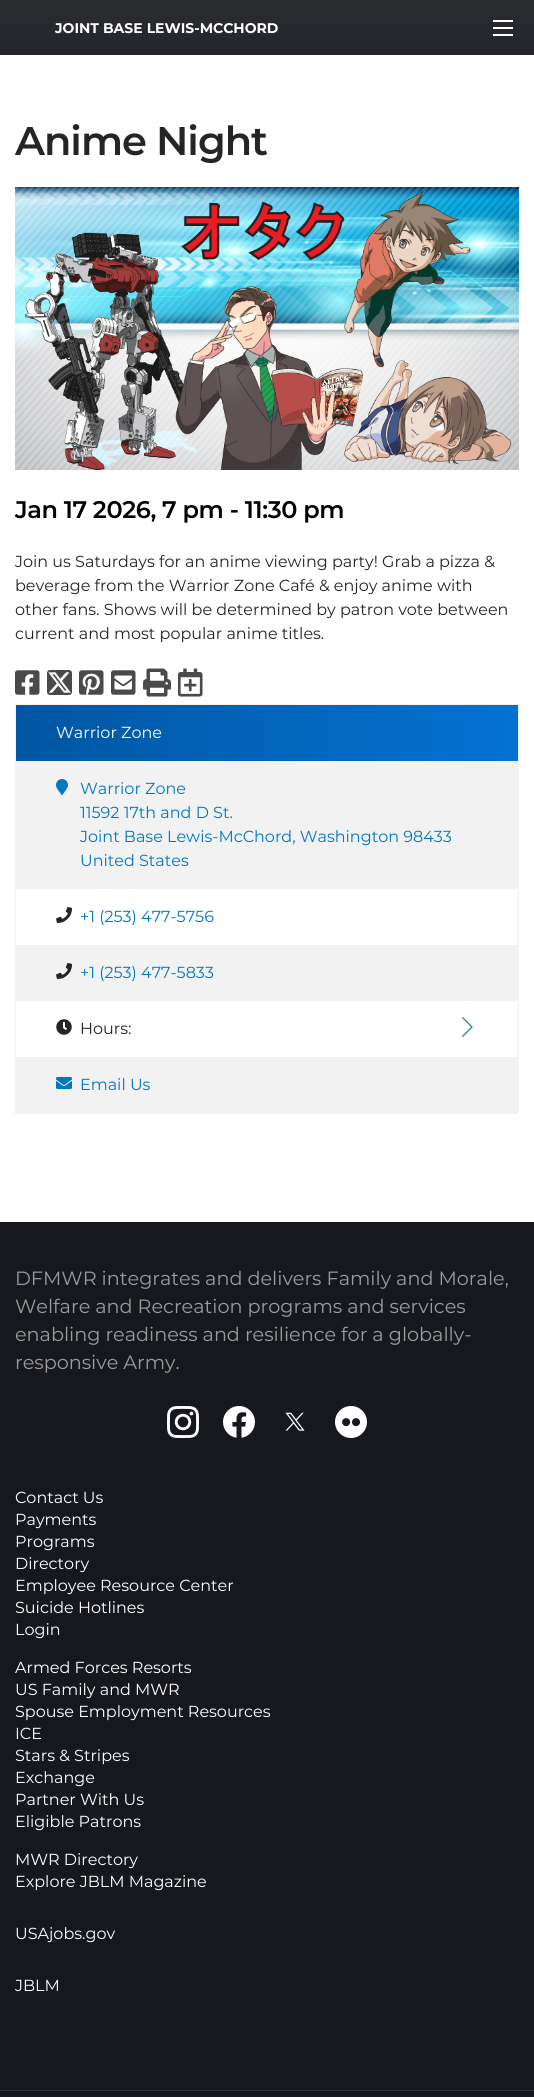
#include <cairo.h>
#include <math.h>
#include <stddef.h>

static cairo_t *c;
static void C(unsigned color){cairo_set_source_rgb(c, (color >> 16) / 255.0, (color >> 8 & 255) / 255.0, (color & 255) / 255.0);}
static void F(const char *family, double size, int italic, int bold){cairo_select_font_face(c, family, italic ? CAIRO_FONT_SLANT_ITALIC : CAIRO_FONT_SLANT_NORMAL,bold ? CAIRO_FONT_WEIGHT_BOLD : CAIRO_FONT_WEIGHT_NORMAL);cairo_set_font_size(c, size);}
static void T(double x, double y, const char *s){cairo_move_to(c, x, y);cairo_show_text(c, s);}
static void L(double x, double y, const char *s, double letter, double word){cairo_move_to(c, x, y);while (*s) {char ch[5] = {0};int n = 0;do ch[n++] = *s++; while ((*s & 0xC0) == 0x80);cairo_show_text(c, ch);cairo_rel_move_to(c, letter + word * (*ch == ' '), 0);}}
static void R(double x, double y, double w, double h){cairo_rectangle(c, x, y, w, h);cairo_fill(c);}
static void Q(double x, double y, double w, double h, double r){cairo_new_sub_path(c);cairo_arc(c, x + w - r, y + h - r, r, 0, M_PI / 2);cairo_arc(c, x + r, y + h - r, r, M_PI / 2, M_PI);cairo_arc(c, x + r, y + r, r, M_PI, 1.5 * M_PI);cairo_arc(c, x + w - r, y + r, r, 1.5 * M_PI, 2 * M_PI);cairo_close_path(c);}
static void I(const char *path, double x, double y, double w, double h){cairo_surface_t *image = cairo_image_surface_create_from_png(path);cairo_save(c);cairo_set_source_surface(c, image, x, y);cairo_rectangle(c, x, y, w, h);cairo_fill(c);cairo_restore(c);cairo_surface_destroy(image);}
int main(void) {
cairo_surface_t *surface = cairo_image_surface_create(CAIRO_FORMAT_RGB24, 534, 2097);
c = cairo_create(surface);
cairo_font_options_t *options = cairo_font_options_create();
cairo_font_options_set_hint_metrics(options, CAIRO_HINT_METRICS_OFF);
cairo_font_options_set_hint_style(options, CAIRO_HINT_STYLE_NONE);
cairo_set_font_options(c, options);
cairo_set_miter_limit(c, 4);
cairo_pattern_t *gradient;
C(0xffffff);
cairo_paint(c);
gradient = cairo_pattern_create_linear(267,0,267,55);
cairo_pattern_add_color_stop_rgba(gradient,0,0.169,0.176,0.192,1);
cairo_pattern_add_color_stop_rgba(gradient,1,0.141,0.145,0.165,1);
cairo_set_source(c,gradient);
cairo_pattern_destroy(gradient);
R(0,0,534,55);
F("Montserrat",14,0,1);
C(0xffffff);
T(55,33,"JOINT BASE LEWIS-MCCHORD");
I("1.png",493,20,20,16);
F("Montserrat SemiBold",40,0,0);
C(0x252525);
L(15,155,"Anime Night",-1,0);
I("2.png",15,187,504,283);
F("Montserrat SemiBold",24,0,0);
C(0x000000);
L(15,518,"Jan 17 2026, 7 pm - 11:30 pm",-.4,0);
F("Montserrat",16,0,0);
C(0x252525);
T(15,567,"Join us Saturdays for an anime viewing party! Grab a pizza &");
T(15,591,"beverage from the Warrior Zone Café & enjoy anime with");
T(15,615,"other fans. Shows will be determined by patron vote between");
T(15,639,"current and most popular anime titles.");
I("3.png",15,670,25,25);
C(0x4a4a4a);
Q(47,670,25,25,3);
cairo_fill(c);
I("4.png",48,672,23,21);
I("5.png",79,670,25,25);
I("6.png",111,670,25,25);
I("7.png",143,668,28,29);
I("8.png",178,668,25,29);
cairo_rectangle(c,15.5,704.5,503,409);
C(0xf2f2f2);
cairo_set_line_width(c,1);
cairo_stroke(c);
gradient = cairo_pattern_create_linear(16,733,518,733);
cairo_pattern_add_color_stop_rgba(gradient,0,0.004,0.337,0.631,1);
cairo_pattern_add_color_stop_rgba(gradient,1,0.012,0.447,0.827,1);
cairo_set_source(c,gradient);
cairo_pattern_destroy(gradient);
R(16,705,502,56);
C(0xffffff);
T(56,738,"Warrior Zone");
C(0xf2f2f2);
R(16,761,502,128);
I("9.png",56,779,12,16);
C(0x0078c1);
T(80,794,"Warrior Zone");
T(80,818,"11592 17th and D St.");
T(80,842,"Joint Base Lewis-McChord, Washington 98433");
T(80,866,"United States");
I("10.png",56,907,16,16);
T(80,922,"+1 (253) 477-5756");
C(0xf2f2f2);
R(16,945,502,56);
I("11.png",56,963,16,16);
C(0x0078c1);
T(80,978,"+1 (253) 477-5833");
I("12.png",56,1019,16,16);
C(0x252525);
T(80,1034,"Hours:");
I("13.png",462,1017,11,20);
C(0xf2f2f2);
R(16,1057,502,56);
I("14.png",56,1077,16,12);
C(0x0078c1);
T(80,1090,"Email Us");
C(0x16181e);
R(0,1222,534,875);
F("Montserrat",19.2,0,0);
C(0x9b9b9b);
T(15,1285,"DFMWR integrates and delivers Family and Morale,");
T(15,1313,"Welfare and Recreation programs and services");
T(15,1341,"enabling readiness and resilience for a globally-");
T(15,1369,"responsive Army.");
I("15.png",167,1406,32,32);
I("16.png",223,1406,32,32);
I("17.png",285,1412,20,19);
I("18.png",335,1406,32,32);
F("Montserrat",16,0,0);
C(0xffffff);
T(15,1503,"Contact Us");
T(15,1525,"Payments");
T(15,1547,"Programs");
T(15,1569,"Directory");
T(15,1591,"Employee Resource Center");
T(15,1613,"Suicide Hotlines");
T(15,1635,"Login");
T(15,1673,"Armed Forces Resorts");
T(15,1695,"US Family and MWR");
T(15,1717,"Spouse Employment Resources");
T(15,1739,"ICE");
T(15,1761,"Stars & Stripes");
T(15,1783,"Exchange");
T(15,1805,"Partner With Us");
T(15,1827,"Eligible Patrons");
T(15,1865,"MWR Directory");
T(15,1887,"Explore JBLM Magazine");
T(15,1939,"USAjobs.gov");
T(15,1991,"JBLM");
C(0x343434);
R(0,2090,534,1);
cairo_surface_write_to_png(surface, "o.png");
cairo_font_options_destroy(options);
cairo_destroy(c);
cairo_surface_destroy(surface);
return 0;
}
